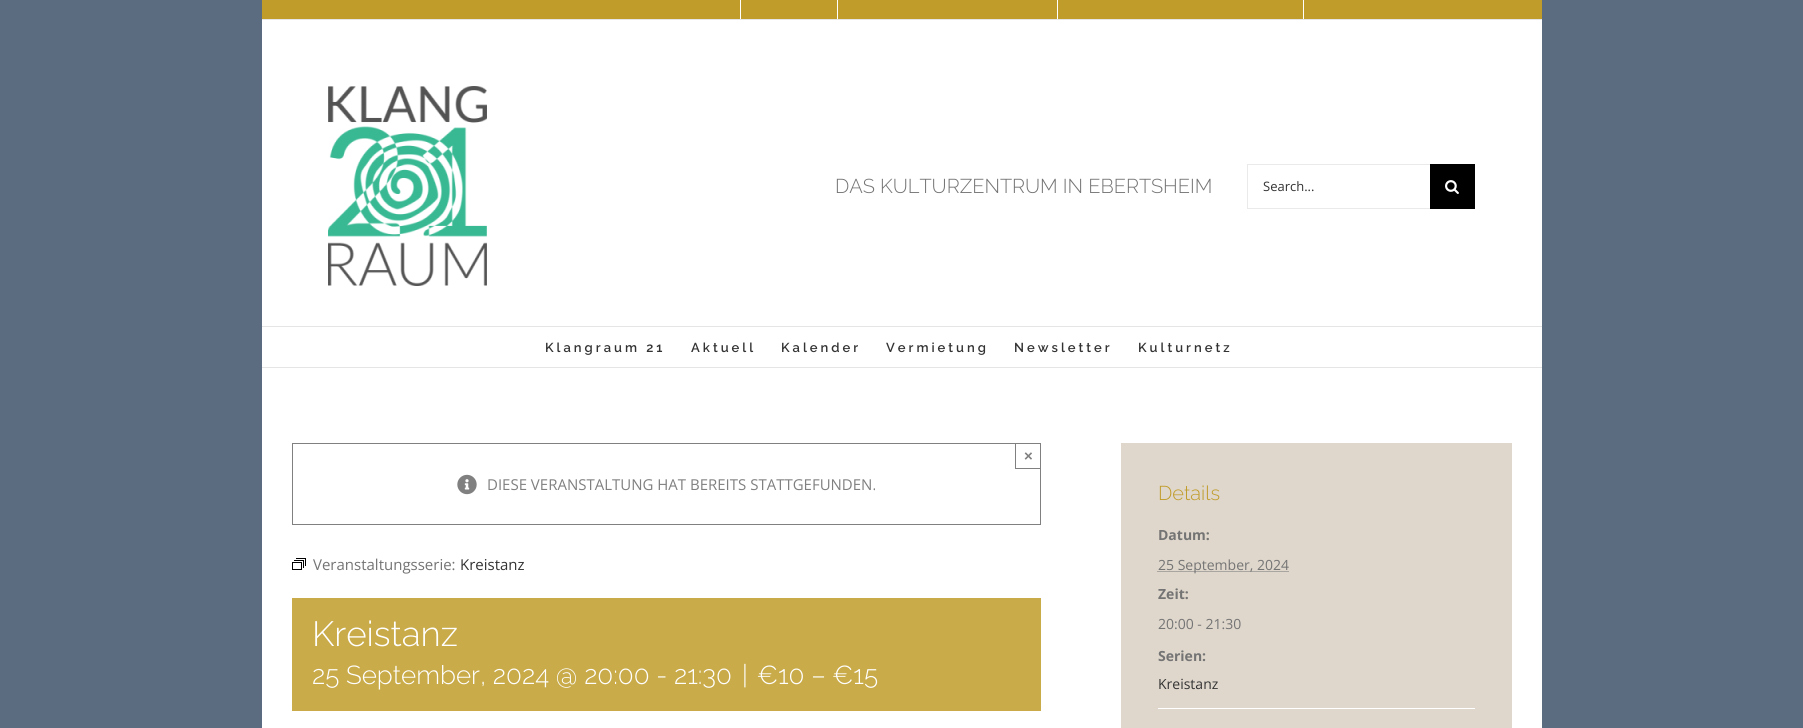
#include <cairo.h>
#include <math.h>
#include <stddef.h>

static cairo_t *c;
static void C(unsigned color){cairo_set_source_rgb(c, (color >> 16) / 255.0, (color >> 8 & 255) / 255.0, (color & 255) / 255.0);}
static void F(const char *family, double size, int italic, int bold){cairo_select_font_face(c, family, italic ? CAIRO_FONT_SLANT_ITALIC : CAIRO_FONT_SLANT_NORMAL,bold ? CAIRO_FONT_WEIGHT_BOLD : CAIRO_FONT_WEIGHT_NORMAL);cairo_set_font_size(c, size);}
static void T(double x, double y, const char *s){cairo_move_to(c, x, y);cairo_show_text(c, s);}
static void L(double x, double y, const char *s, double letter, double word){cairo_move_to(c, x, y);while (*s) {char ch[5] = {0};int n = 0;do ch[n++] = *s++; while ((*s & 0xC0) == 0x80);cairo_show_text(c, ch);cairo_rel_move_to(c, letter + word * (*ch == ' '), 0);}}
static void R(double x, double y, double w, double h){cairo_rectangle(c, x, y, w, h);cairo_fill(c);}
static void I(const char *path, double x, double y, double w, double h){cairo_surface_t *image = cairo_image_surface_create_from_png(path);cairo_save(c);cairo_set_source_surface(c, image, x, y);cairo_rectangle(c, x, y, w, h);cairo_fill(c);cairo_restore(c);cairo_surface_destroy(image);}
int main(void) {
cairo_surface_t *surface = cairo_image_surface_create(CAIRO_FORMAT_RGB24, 1803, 728);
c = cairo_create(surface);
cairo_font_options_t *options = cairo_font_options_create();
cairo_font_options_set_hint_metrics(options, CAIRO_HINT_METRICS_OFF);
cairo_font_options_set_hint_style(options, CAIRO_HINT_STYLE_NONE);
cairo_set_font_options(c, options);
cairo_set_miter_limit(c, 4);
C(0x5c6c80);
cairo_paint(c);
C(0xc09c2a);
R(262,0,1280,19);
C(0xe5e5e5);
R(262,19,1280,1);
C(0xffffff);
R(740,0,1,19);
R(837,0,1,19);
R(1057,0,1,19);
R(1303,0,1,19);
R(262,20,1280,306);
C(0xe5e5e5);
R(262,326,1280,1);
I("1.png",328,86,159,200);
F("Raleway Light",20,0,0);
C(0x747474);
T(835,193,"DAS KULTURZENTRUM IN EBERTSHEIM");
C(0xeaeaea);
R(1247,164,183,1);
R(1247,208,183,1);
R(1247,164,1,45);
F("Open Sans",13,0,0);
C(0x333333);
T(1263,191,"Search...");
C(0x000000);
R(1430,164,45,45);
I("2.png",1445,180,14,14);
C(0xffffff);
R(262,327,1280,40);
C(0xe5e5e5);
R(262,367,1280,1);
F("Raleway SemiBold",13,0,0);
C(0x333333);
L(545,352,"Klangraum 21",3,0);
L(691,352,"Aktuell",3,0);
L(781,352,"Kalender",3,0);
L(886,352,"Vermietung",3,0);
L(1014,352,"Newsletter",3,0);
L(1138,352,"Kulturnetz",3,0);
C(0xffffff);
R(262,368,1280,360);
cairo_rectangle(c,292.5,443.5,748,81);
C(0x808080);
cairo_set_line_width(c,1);
cairo_stroke(c);
R(1015,468,26,1);
R(1015,443,1,26);
F("Liberation Sans",15,0,1);
T(1024,461,"×");
I("3.png",457,474,20,21);
F("Open Sans",15,0,0);
T(487,490,"DIESE VERANSTALTUNG HAT BEREITS STATTGEFUNDEN.");
I("4.png",292,558,14,12);
C(0x747474);
T(313,570,"Veranstaltungsserie:");
C(0x333333);
T(460,570,"Kreistanz");
C(0xc9ab4a);
R(292,598,749,113);
F("Raleway Light",35,0,0);
C(0xffffff);
T(312,646,"Kreistanz");
F("Raleway Light",26,0,0);
T(312,684,"25 September, 2024 @ 20:00 - 21:30");
T(742,684,"|");
T(757,684,"€10 – €15");
C(0xdfd7cc);
R(1121,443,391,285);
F("Raleway Light",20,0,0);
C(0xc09c2a);
T(1158,500,"Details");
F("Open Sans",14,0,1);
C(0x747474);
T(1158,540,"Datum:");
cairo_new_path(c);
cairo_move_to(c,1157.5,571.5);
cairo_line_to(c,1288.5,571.5);
cairo_set_dash(c,(double[]){1,1},2,0);
cairo_stroke(c);
F("Open Sans",14,0,0);
T(1158,570,"25 September, 2024");
F("Open Sans",14,0,1);
T(1158,599,"Zeit:");
F("Open Sans",14,0,0);
T(1158,629,"20:00 - 21:30");
F("Open Sans",14,0,1);
T(1158,661,"Serien:");
C(0xffffff);
R(1158,708,317,1);
F("Open Sans",14,0,0);
C(0x333333);
T(1158,689,"Kreistanz");
cairo_surface_write_to_png(surface, "o.png");
cairo_font_options_destroy(options);
cairo_destroy(c);
cairo_surface_destroy(surface);
return 0;
}
